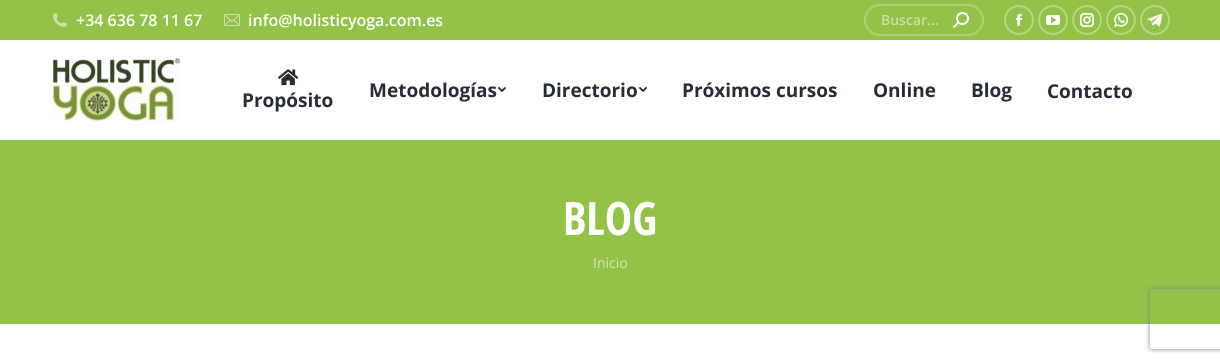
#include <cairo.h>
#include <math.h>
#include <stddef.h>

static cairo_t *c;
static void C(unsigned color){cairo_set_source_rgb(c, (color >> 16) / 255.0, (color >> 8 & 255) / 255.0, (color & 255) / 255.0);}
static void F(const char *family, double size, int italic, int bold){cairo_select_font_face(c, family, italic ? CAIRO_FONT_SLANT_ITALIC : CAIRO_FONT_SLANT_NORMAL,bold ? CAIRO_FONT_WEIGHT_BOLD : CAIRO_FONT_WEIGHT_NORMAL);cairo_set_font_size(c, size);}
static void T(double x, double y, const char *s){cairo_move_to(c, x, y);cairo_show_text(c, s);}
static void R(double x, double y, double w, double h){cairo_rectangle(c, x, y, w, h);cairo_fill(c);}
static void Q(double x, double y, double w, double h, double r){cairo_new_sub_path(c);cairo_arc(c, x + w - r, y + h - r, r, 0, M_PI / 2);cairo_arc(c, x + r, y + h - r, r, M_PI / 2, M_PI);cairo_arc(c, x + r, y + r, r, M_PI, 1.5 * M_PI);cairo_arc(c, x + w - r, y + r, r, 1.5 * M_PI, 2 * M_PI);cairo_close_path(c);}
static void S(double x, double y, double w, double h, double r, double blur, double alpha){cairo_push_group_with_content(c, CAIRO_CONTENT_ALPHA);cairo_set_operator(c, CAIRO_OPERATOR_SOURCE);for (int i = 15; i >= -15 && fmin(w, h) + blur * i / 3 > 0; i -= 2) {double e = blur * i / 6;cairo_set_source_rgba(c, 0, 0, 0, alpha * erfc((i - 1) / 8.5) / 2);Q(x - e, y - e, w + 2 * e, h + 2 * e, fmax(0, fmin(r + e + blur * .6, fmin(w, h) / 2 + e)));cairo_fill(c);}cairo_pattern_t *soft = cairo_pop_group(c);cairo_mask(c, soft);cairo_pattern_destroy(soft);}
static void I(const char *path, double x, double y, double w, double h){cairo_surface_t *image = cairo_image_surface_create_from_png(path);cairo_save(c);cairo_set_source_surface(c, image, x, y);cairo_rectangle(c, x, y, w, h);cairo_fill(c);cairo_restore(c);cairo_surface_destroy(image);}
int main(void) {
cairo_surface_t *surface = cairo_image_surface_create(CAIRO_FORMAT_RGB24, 1220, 363);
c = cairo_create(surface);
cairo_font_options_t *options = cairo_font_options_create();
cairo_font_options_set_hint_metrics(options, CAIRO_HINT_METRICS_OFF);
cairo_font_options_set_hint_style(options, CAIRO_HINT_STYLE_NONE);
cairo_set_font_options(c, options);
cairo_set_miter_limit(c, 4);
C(0xffffff);
cairo_paint(c);
C(0x93c248);
R(0,0,1220,40);
I("1.png",53,13,14,14);
F("Open Sans SemiBold",16,0,0);
C(0xffffff);
T(76,26,"+34 636 78 11 67");
I("2.png",224,14,16,12);
T(248,26,"info@holisticyoga.com.es");
Q(865,5,118,30,15);
C(0xaed176);
cairo_stroke(c);
F("Open Sans SemiBold",14,0,0);
C(0xc9e1a4);
T(881,25,"Buscar...");
I("3.png",953,12,16,16);
cairo_arc(c,1019,20,14,0,2 * M_PI);
C(0xb6d683);
cairo_stroke(c);
I("4.png",1016,14,6,12);
cairo_arc(c,1053,20,14,0,2 * M_PI);
cairo_stroke(c);
I("5.png",1046,15,14,10);
cairo_arc(c,1087,20,14,0,2 * M_PI);
cairo_stroke(c);
I("6.png",1080,13,14,14);
cairo_arc(c,1121,20,14,0,2 * M_PI);
cairo_stroke(c);
I("7.png",1114,13,14,14);
cairo_arc(c,1155,20,14,0,2 * M_PI);
cairo_stroke(c);
I("8.png",1147,13,16,14);
I("9.png",52,58,128,64);
I("10.png",278,69,21,17);
F("Open Sans",19,0,1);
C(0x262d37);
T(242,107,"Propósito");
T(369,97,"Metodologías");
I("11.png",498,87,8,5);
T(542,97,"Directorio");
I("11.png",639,87,8,5);
T(682,97,"Próximos cursos");
T(873,97,"Online");
T(971,97,"Blog");
T(1047,98,"Contacto");
C(0x93c248);
R(0,140,1220,184);
F("Open Sans Condensed",46,0,1);
C(0xffffff);
T(563,235,"BLOG");
F("Open Sans",14,0,0);
C(0xd4e7b6);
T(593,268,"Inicio");
cairo_save(c);
cairo_set_fill_rule(c,CAIRO_FILL_RULE_EVEN_ODD);
cairo_new_path(c);
cairo_move_to(c,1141,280);
cairo_line_to(c,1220,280);
cairo_line_to(c,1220,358);
cairo_line_to(c,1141,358);
cairo_close_path(c);
cairo_move_to(c,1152,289);
cairo_line_to(c,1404,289);
cairo_curve_to(c,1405,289,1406,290,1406,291);
cairo_line_to(c,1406,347);
cairo_curve_to(c,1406,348,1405,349,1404,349);
cairo_line_to(c,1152,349);
cairo_curve_to(c,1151,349,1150,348,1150,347);
cairo_line_to(c,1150,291);
cairo_curve_to(c,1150,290,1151,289,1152,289);
cairo_close_path(c);
cairo_clip(c);
C(0x808080);
S(1150,289,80,60,2,2.5,1);
cairo_restore(c);
cairo_surface_write_to_png(surface, "o.png");
cairo_font_options_destroy(options);
cairo_destroy(c);
cairo_surface_destroy(surface);
return 0;
}
